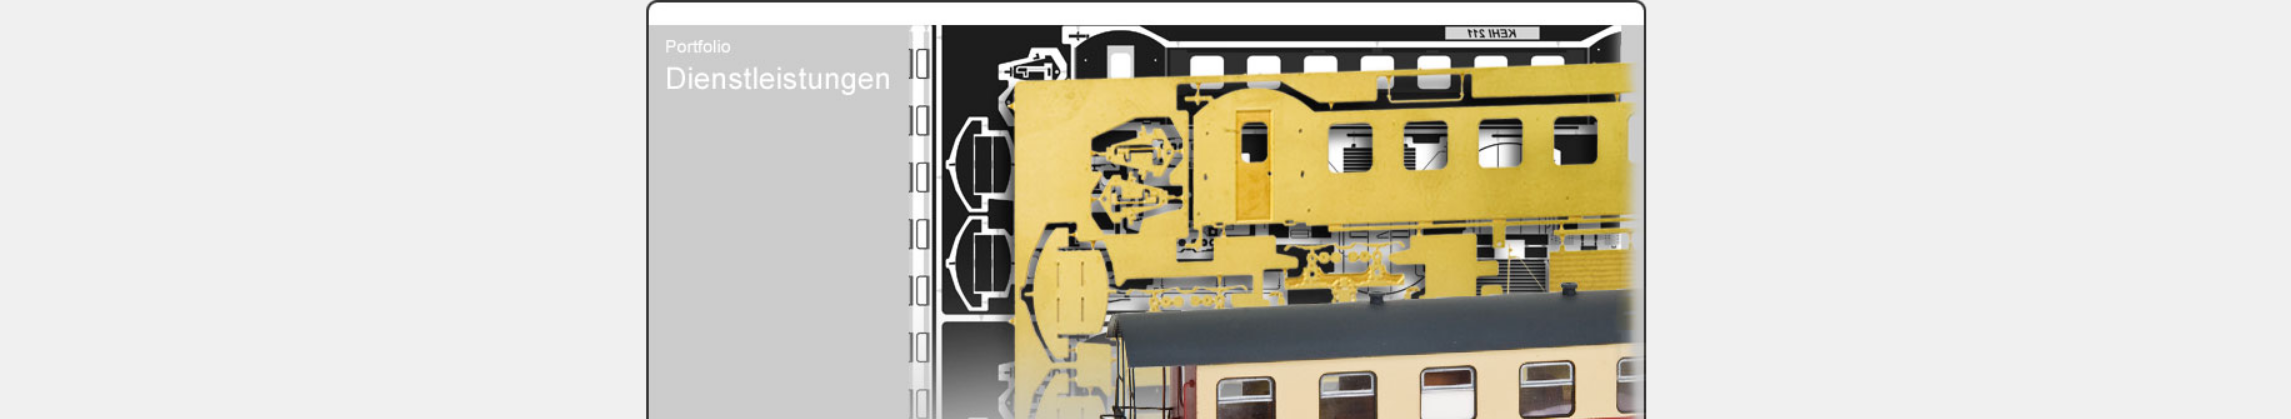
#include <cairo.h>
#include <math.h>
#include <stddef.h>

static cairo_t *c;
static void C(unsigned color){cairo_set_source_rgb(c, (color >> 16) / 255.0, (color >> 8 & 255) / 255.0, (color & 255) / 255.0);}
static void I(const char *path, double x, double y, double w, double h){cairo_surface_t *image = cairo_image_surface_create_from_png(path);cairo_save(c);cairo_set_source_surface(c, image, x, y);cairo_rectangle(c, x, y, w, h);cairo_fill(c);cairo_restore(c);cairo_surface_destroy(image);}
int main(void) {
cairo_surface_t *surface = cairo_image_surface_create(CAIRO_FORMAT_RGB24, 2291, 419);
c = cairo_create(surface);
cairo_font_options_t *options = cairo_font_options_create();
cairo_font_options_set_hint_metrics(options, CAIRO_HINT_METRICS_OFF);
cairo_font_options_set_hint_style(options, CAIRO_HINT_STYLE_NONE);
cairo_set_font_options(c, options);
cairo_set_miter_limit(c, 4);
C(0xf0f0f0);
cairo_paint(c);
I("1.png",646,0,1001,419);
cairo_surface_write_to_png(surface, "o.png");
cairo_font_options_destroy(options);
cairo_destroy(c);
cairo_surface_destroy(surface);
return 0;
}
